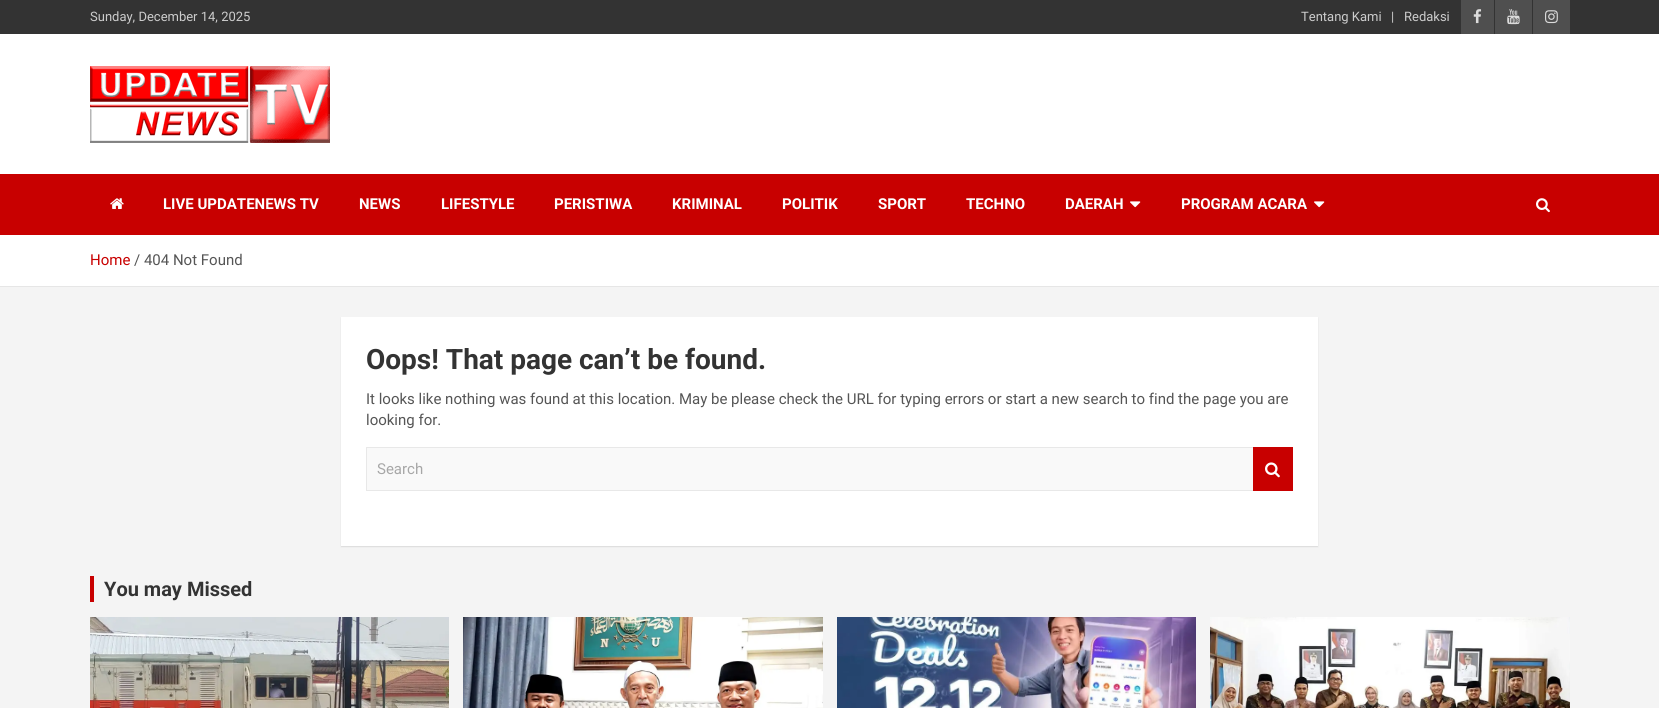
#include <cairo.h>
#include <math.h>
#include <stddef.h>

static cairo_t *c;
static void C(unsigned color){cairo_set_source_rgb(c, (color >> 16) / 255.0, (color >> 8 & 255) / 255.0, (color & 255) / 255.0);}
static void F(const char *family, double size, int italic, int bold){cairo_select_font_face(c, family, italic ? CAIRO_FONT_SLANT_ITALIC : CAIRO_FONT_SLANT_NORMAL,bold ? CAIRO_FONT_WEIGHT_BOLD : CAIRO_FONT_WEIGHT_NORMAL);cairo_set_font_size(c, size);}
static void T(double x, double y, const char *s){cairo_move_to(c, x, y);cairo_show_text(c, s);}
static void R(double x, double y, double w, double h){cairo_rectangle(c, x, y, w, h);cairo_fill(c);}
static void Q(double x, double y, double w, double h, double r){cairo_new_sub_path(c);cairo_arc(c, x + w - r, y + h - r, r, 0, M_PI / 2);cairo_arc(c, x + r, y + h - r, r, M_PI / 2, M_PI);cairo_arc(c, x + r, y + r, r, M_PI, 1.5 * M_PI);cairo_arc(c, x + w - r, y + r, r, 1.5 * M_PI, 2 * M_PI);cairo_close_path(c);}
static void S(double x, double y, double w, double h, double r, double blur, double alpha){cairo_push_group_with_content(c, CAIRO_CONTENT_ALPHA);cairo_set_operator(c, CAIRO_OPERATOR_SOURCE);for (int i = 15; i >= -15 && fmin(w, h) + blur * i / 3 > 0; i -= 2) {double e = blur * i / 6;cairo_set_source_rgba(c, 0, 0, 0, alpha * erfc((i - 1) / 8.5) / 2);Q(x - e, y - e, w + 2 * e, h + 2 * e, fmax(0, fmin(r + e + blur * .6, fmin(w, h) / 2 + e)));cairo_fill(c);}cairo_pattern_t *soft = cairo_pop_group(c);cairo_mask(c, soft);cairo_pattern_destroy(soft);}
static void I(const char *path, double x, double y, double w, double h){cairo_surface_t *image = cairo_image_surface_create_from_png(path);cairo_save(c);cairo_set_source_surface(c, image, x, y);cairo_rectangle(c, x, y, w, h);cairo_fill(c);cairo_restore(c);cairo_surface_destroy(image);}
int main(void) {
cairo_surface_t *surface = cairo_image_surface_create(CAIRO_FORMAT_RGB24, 1659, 708);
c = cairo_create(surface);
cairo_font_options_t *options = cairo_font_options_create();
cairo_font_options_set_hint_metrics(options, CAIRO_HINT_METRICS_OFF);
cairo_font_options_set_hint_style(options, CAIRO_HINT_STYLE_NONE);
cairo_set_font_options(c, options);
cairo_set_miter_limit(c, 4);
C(0xf4f4f4);
cairo_paint(c);
C(0x333333);
R(0,0,1659,34);
F("Roboto",13,0,0);
C(0xcccccc);
T(90,21,"Sunday, December 14, 2025");
T(1301,21,"Tentang Kami");
T(1391,21,"|");
T(1404,21,"Redaksi");
C(0x4f4f4f);
R(1461,0,33,34);
I("1.png",1473,9,9,15);
R(1495,0,37,34);
I("2.png",1507,9,13,16);
R(1533,0,37,34);
I("3.png",1545,10,13,14);
C(0xffffff);
R(0,34,1659,140);
I("4.png",90,66,240,77);
C(0xc80000);
R(0,174,1659,61);
I("5.png",110,198,14,11);
F("Roboto",15,0,1);
C(0xffffff);
T(163,209,"LIVE UPDATENEWS TV");
T(359,209,"NEWS");
T(441,209,"LIFESTYLE");
T(554,209,"PERISTIWA");
T(672,209,"KRIMINAL");
T(782,209,"POLITIK");
T(878,209,"SPORT");
T(966,209,"TECHNO");
T(1065,209,"DAERAH");
I("6.png",1130,201,11,7);
T(1181,209,"PROGRAM ACARA");
I("6.png",1314,201,11,7);
I("7.png",1536,198,14,15);
R(0,235,1659,51);
C(0xe6e6e6);
R(0,286,1659,1);
F("Roboto",15,0,0);
C(0xc80000);
T(90,265,"Home");
C(0x555555);
T(134,265,"/ 404 Not Found");
C(0x000000);
S(341,318,977,229,0,.5,.1);
C(0xffffff);
R(341,317,977,229);
F("Roboto",28,0,1);
C(0x333333);
T(366,369,"Oops! That page can’t be found.");
F("Roboto",15,0,0);
C(0x555555);
T(366,404,"It looks like nothing was found at this location. May be please check the URL for typing errors or start a new search to find the page you are");
T(366,425,"looking for.");
C(0xf9f9f9);
R(367,448,886,42);
C(0xe8e8e8);
cairo_new_path(c);
cairo_move_to(c,366,447);
cairo_line_to(c,1253,447);
cairo_line_to(c,1253,448);
cairo_line_to(c,367,448);
cairo_close_path(c);
cairo_fill(c);
cairo_new_path(c);
cairo_move_to(c,1253,491);
cairo_line_to(c,366,491);
cairo_line_to(c,367,490);
cairo_line_to(c,1253,490);
cairo_close_path(c);
cairo_fill(c);
cairo_set_source_rgba(c,0,0,0,0.09);
cairo_new_path(c);
cairo_move_to(c,366,491);
cairo_line_to(c,366,447);
cairo_line_to(c,367,448);
cairo_line_to(c,367,490);
cairo_close_path(c);
cairo_fill(c);
C(0xa7a7a7);
T(377,474,"Search");
C(0xc80000);
R(1253,447,40,44);
I("8.png",1265,462,15,16);
R(90,576,4,26);
F("Roboto",20,0,1);
C(0x333333);
T(104,596,"You may Missed");
I("9.png",90,617,359,91);
I("10.png",463,617,360,91);
I("11.png",837,617,359,91);
I("12.png",1210,617,360,91);
cairo_surface_write_to_png(surface, "o.png");
cairo_font_options_destroy(options);
cairo_destroy(c);
cairo_surface_destroy(surface);
return 0;
}
